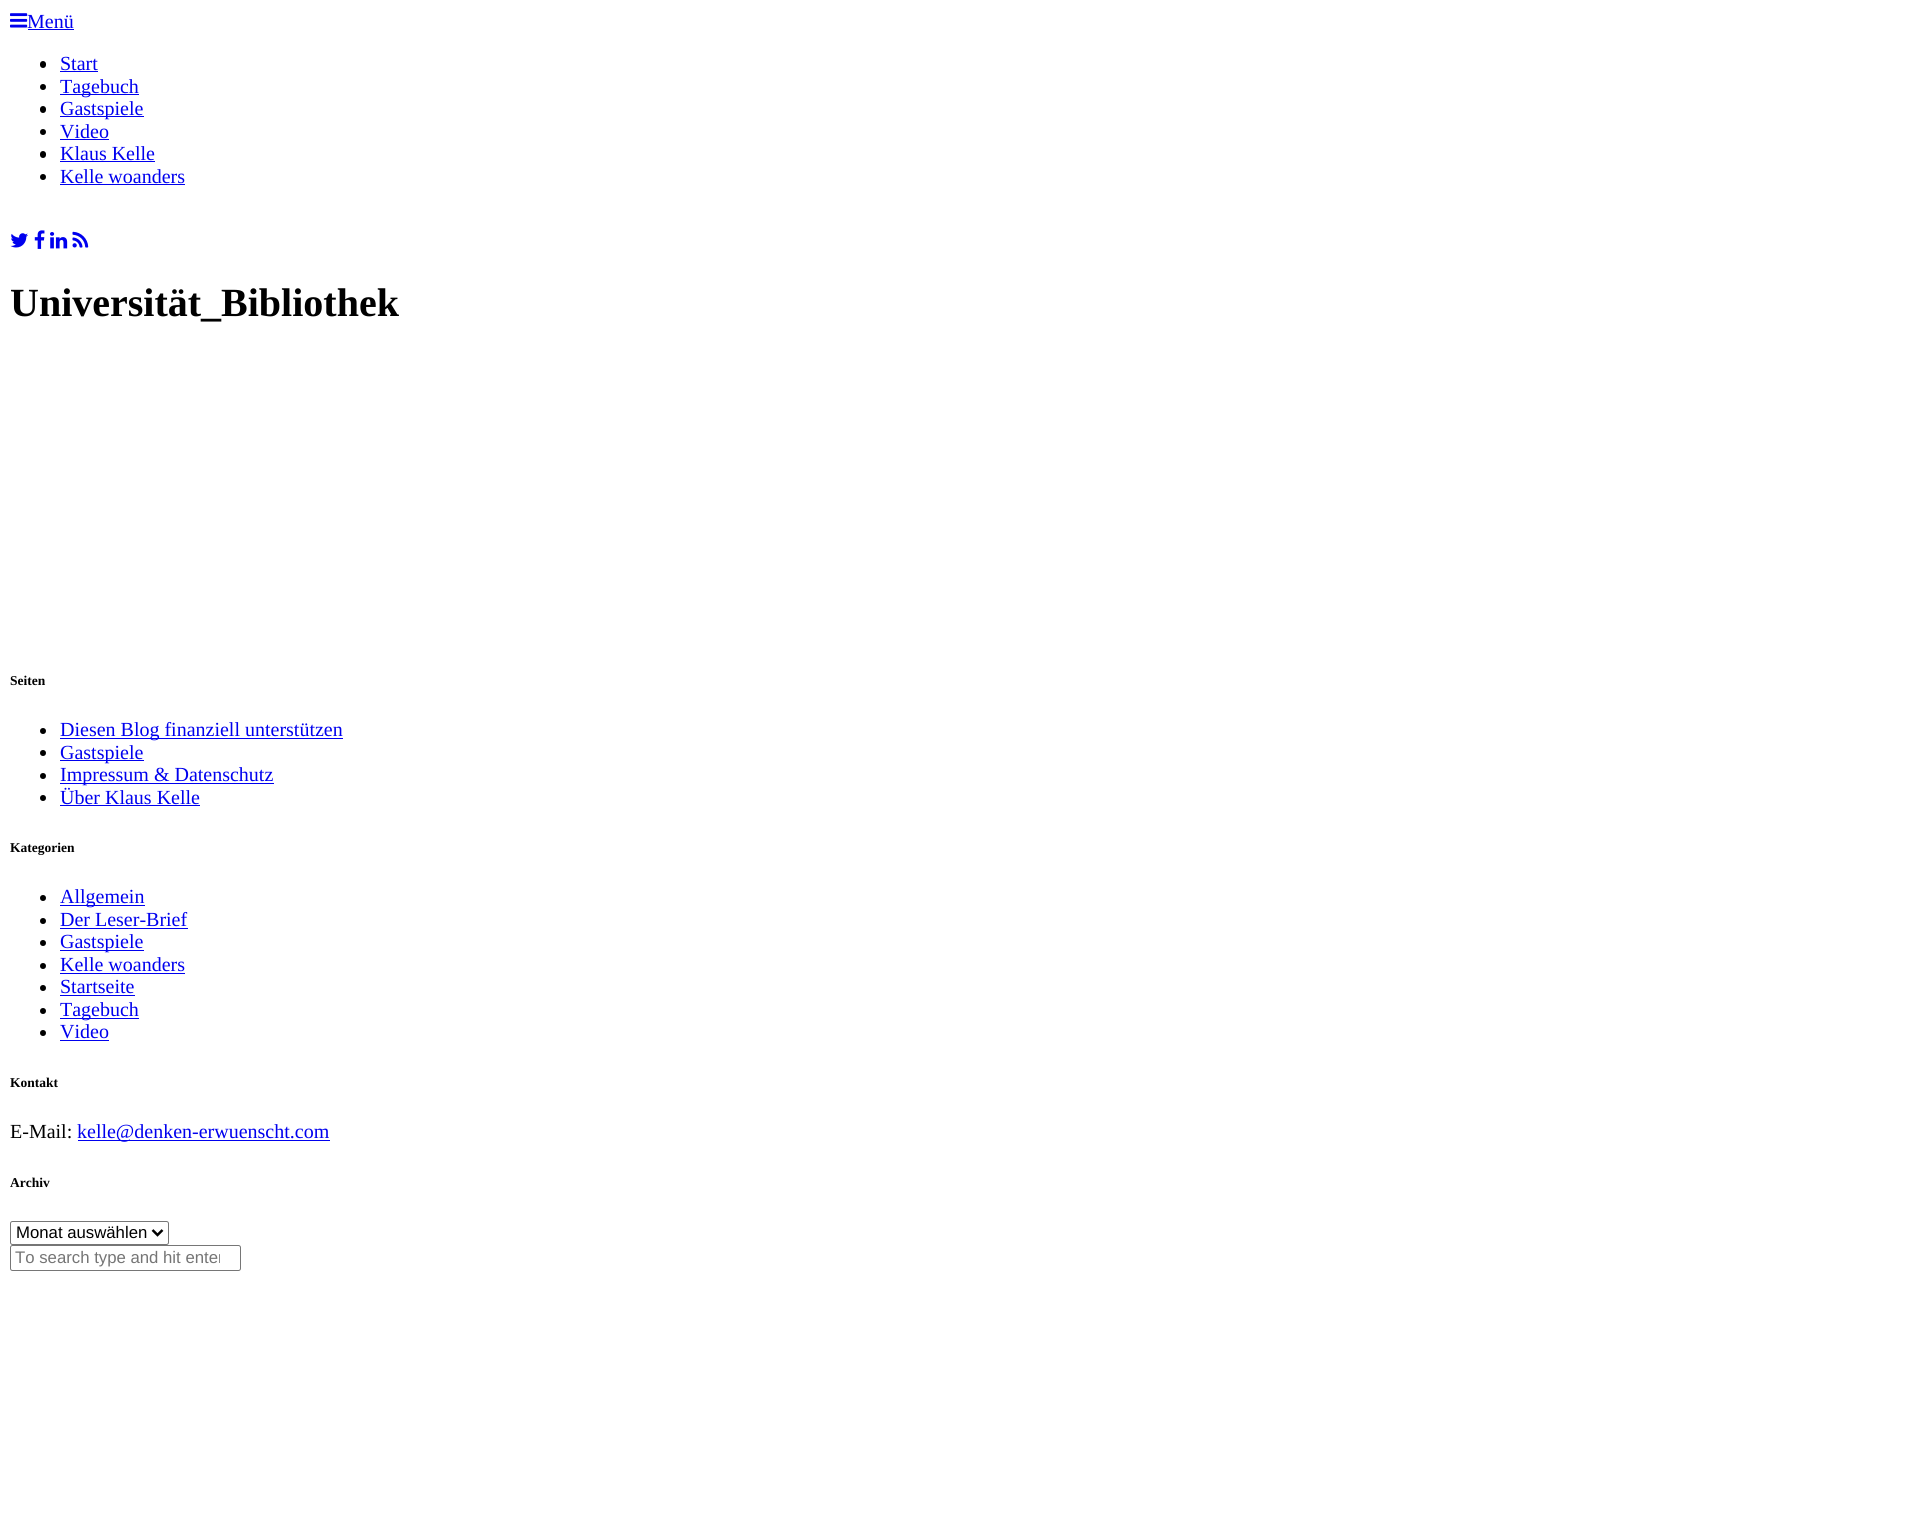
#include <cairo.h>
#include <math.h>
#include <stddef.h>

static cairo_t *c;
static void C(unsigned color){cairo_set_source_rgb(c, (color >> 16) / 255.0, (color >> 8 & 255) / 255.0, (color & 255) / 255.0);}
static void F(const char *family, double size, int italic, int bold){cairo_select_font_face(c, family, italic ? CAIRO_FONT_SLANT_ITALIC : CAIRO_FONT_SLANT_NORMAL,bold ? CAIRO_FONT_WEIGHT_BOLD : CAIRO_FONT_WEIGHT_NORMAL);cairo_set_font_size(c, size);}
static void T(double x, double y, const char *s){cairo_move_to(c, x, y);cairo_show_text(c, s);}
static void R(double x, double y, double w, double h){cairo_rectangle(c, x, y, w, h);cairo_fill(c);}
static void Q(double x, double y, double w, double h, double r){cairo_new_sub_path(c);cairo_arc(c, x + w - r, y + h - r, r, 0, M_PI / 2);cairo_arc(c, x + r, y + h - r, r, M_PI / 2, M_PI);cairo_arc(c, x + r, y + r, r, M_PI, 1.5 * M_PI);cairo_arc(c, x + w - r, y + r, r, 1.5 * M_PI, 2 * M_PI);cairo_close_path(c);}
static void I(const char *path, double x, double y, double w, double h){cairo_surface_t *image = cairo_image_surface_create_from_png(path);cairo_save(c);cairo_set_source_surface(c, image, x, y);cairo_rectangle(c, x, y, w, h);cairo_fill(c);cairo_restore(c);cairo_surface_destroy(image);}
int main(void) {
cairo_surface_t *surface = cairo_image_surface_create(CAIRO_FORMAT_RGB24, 1927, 1537);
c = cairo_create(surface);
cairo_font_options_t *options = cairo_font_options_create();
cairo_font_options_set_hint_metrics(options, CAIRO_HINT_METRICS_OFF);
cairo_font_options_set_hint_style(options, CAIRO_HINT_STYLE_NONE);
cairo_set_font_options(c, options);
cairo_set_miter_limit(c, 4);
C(0xffffff);
cairo_paint(c);
F("Liberation Serif",20,0,0);
C(0x0000ee);
T(27,28,"Menü");
I("1.png",10,13,18,15);
R(28,29,46,1);
C(0x000000);
Q(40,61,6,7,3);
cairo_fill(c);
C(0x0000ee);
T(60,70,"Start");
R(60,71,38,1);
C(0x000000);
cairo_new_path(c);
cairo_arc(c,43,87,3,0,2 * M_PI);
cairo_fill(c);
C(0x0000ee);
R(60,94,79,1);
T(60,93,"Tagebuch");
C(0x000000);
Q(40,106,6,7,3);
cairo_fill(c);
C(0x0000ee);
R(60,116,84,1);
T(60,115,"Gastspiele");
C(0x000000);
cairo_new_path(c);
cairo_arc(c,43,132,3,0,2 * M_PI);
cairo_fill(c);
C(0x0000ee);
T(60,138,"Video");
R(60,139,49,1);
C(0x000000);
Q(40,151,6,7,3);
cairo_fill(c);
C(0x0000ee);
T(60,160,"Klaus Kelle");
R(60,161,95,1);
C(0x000000);
cairo_new_path(c);
cairo_arc(c,43,177,3,0,2 * M_PI);
cairo_fill(c);
C(0x0000ee);
T(60,183,"Kelle woanders");
R(60,184,125,1);
I("2.png",10,233,18,15);
I("3.png",34,230,11,19);
I("4.png",50,232,18,17);
I("5.png",72,231,17,17);
F("Liberation Serif",40,0,1);
C(0x000000);
T(10,316,"Universität_Bibliothek");
F("Liberation Serif",13.5,0,1);
T(10,685,"Seiten");
cairo_new_path(c);
cairo_arc(c,43,731,3,0,2 * M_PI);
cairo_fill(c);
C(0x0000ee);
R(60,738,283,1);
F("Liberation Serif",20,0,0);
T(60,736,"Diesen Blog finanziell unterstützen");
C(0x000000);
cairo_new_path(c);
cairo_arc(c,43,753,3,0,2 * M_PI);
cairo_fill(c);
C(0x0000ee);
R(60,760,84,1);
T(60,759,"Gastspiele");
C(0x000000);
cairo_new_path(c);
cairo_arc(c,43,776,3,0,2 * M_PI);
cairo_fill(c);
C(0x0000ee);
R(60,783,214,1);
T(60,781,"Impressum & Datenschutz");
C(0x000000);
cairo_new_path(c);
cairo_arc(c,43,798,3,0,2 * M_PI);
cairo_fill(c);
C(0x0000ee);
T(60,804,"Über Klaus Kelle");
R(60,805,140,1);
F("Liberation Serif",13.5,0,1);
C(0x000000);
T(10,852,"Kategorien");
cairo_new_path(c);
cairo_arc(c,43,898,3,0,2 * M_PI);
cairo_fill(c);
C(0x0000ee);
R(60,905,85,1);
F("Liberation Serif",20,0,0);
T(60,903,"Allgemein");
C(0x000000);
cairo_new_path(c);
cairo_arc(c,43,921,3,0,2 * M_PI);
cairo_fill(c);
C(0x0000ee);
T(60,926,"Der Leser-Brief");
R(60,928,128,1);
C(0x000000);
cairo_new_path(c);
cairo_arc(c,43,943,3,0,2 * M_PI);
cairo_fill(c);
C(0x0000ee);
R(60,950,84,1);
T(60,948,"Gastspiele");
C(0x000000);
cairo_new_path(c);
cairo_arc(c,43,966,3,0,2 * M_PI);
cairo_fill(c);
C(0x0000ee);
T(60,971,"Kelle woanders");
R(60,973,125,1);
C(0x000000);
cairo_new_path(c);
cairo_arc(c,43,988,3,0,2 * M_PI);
cairo_fill(c);
C(0x0000ee);
T(60,993,"Startseite");
R(60,995,75,1);
C(0x000000);
cairo_new_path(c);
cairo_arc(c,43,1011,3,0,2 * M_PI);
cairo_fill(c);
C(0x0000ee);
R(60,1018,79,1);
T(60,1016,"Tagebuch");
C(0x000000);
cairo_new_path(c);
cairo_arc(c,43,1033,3,0,2 * M_PI);
cairo_fill(c);
C(0x0000ee);
T(60,1038,"Video");
R(60,1040,49,1);
F("Liberation Serif",13.5,0,1);
C(0x000000);
T(10,1087,"Kontakt");
F("Liberation Serif",20,0,0);
T(10,1138,"E-Mail:");
C(0x0000ee);
R(78,1140,252,1);
T(77,1138,"kelle@denken-erwuenscht.com");
F("Liberation Serif",13.5,0,1);
C(0x000000);
T(10,1187,"Archiv");
Q(10.5,1221.5,158,23,2);
C(0x767676);
cairo_set_line_width(c,1);
cairo_stroke(c);
cairo_new_path(c);
cairo_move_to(c,152.5,1230);
cairo_line_to(c,157.5,1235);
cairo_line_to(c,162.5,1230);
C(0x000000);
cairo_set_line_width(c,2.5);
cairo_stroke(c);
F("Liberation Sans",16.75,0,0);
T(16,1238,"Monat auswählen");
Q(10.5,1245.5,230,25,2);
C(0x767676);
cairo_set_line_width(c,1);
cairo_stroke(c);
cairo_save(c);
cairo_rectangle(c,15,1249,205,19);
cairo_clip(c);
C(0x757575);
T(15,1263,"To search type and hit enter");
cairo_restore(c);
cairo_surface_write_to_png(surface, "o.png");
cairo_font_options_destroy(options);
cairo_destroy(c);
cairo_surface_destroy(surface);
return 0;
}
